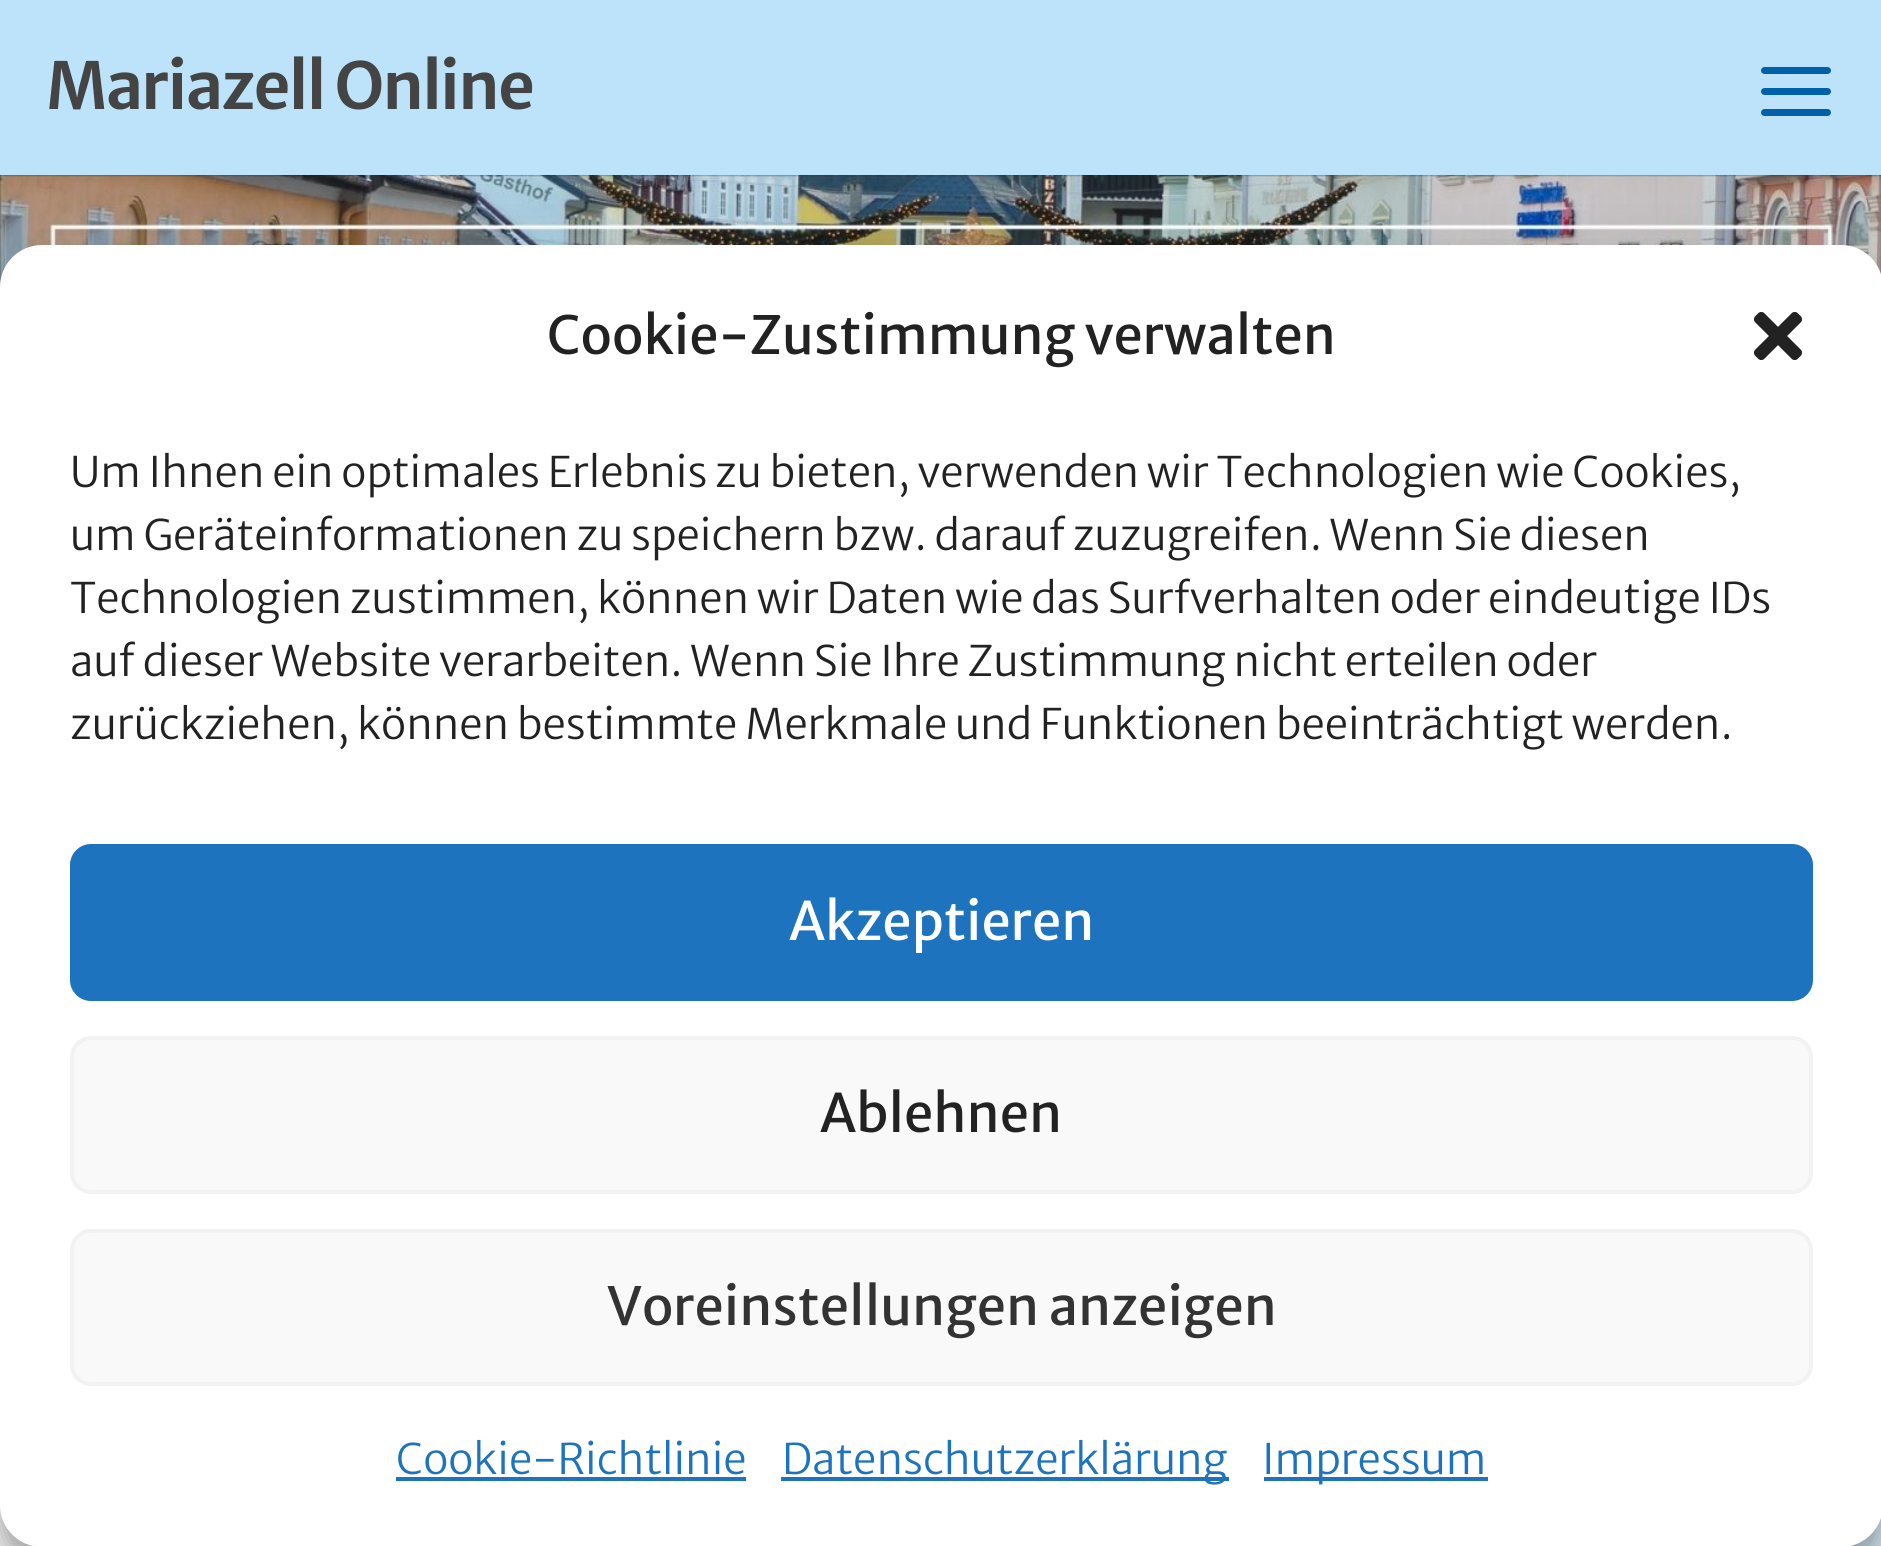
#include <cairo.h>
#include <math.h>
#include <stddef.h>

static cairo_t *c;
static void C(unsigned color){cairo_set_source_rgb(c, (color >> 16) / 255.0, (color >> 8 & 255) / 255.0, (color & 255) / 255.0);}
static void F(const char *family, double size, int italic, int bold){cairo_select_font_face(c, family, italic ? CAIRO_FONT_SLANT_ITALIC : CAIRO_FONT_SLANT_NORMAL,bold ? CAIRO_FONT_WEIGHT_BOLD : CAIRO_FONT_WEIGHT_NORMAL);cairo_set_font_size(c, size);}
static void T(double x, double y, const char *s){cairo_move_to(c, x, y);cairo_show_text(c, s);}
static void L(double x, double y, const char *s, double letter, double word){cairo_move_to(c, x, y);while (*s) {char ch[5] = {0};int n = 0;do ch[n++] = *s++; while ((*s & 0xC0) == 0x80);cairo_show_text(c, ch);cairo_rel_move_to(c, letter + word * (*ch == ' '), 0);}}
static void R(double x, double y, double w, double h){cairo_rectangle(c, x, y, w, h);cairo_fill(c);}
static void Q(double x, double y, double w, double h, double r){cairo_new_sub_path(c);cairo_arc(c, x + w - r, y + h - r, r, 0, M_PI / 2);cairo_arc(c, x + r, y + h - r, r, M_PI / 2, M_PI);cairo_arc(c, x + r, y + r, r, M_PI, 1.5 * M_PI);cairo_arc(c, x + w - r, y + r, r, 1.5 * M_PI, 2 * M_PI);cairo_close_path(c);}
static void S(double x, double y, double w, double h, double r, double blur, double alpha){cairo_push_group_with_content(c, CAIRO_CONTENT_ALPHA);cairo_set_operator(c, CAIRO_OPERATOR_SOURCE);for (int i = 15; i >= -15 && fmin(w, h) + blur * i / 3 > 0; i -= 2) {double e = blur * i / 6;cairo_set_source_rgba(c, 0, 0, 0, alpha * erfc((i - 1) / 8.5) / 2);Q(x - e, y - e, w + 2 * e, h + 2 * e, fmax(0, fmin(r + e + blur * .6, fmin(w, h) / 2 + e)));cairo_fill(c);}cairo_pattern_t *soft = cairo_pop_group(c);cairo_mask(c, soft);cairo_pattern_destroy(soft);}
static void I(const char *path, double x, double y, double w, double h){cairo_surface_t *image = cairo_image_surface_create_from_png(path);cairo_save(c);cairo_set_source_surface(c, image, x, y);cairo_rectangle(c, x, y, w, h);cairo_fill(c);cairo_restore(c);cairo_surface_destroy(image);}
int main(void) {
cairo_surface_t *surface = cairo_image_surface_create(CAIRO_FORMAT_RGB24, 1881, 1546);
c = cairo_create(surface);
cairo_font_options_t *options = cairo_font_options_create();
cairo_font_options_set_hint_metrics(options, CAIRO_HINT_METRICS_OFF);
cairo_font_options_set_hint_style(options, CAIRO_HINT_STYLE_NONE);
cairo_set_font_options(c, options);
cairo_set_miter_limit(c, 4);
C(0xffffff);
cairo_paint(c);
C(0xbce3f9);
R(0,0,1881,175);
F("Merriweather Sans SemiBold",64.75,0,0);
C(0x444444);
L(46,109,"Mariazell Online",-1.75,0);
C(0x0060aa);
Q(1761,67,70,7,3.5);
cairo_fill(c);
Q(1761,88,70,7,3.5);
cairo_fill(c);
Q(1761,109,70,7,3.5);
cairo_fill(c);
I("1.png",0,175,1881,112);
C(0xdff1fd);
R(1850,1517,31,29);
C(0x000000);
S(0,266,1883,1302,42,10.5,.23);
S(0,280,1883,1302,42,35,.19);
C(0xffffff);
Q(0,245,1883,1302,42);
cairo_fill(c);
F("Merriweather Sans",52.5,0,0);
C(0x222222);
T(547,354,"Cookie-Zustimmung verwalten");
I("2.png",1753,311,50,50);
F("Merriweather Sans Light",42,0,0);
T(70,487,"Um Ihnen ein optimales Erlebnis zu bieten, verwenden wir Technologien wie Cookies,");
T(70,550,"um Geräteinformationen zu speichern bzw. darauf zuzugreifen. Wenn Sie diesen");
T(70,613,"Technologien zustimmen, können wir Daten wie das Surfverhalten oder eindeutige IDs");
T(70,676,"auf dieser Website verarbeiten. Wenn Sie Ihre Zustimmung nicht erteilen oder");
T(70,739,"zurückziehen, können bestimmte Merkmale und Funktionen beeinträchtigt werden.");
C(0x1e73be);
Q(72,846,1739,153,19);
cairo_fill_preserve(c);
cairo_set_line_width(c,4);
cairo_stroke(c);
F("Merriweather Sans",52.5,0,0);
C(0xffffff);
T(789,940,"Akzeptieren");
C(0xf9f9f9);
Q(72,1038,1739,154,19);
cairo_fill_preserve(c);
C(0xf2f2f2);
cairo_stroke(c);
C(0x222222);
T(820,1132,"Ablehnen");
C(0xf9f9f9);
Q(72,1231,1739,153,19);
cairo_fill_preserve(c);
C(0xf2f2f2);
cairo_stroke(c);
C(0x333333);
T(607,1325,"Voreinstellungen anzeigen");
F("Merriweather Sans Light",42,0,0);
C(0x1e73be);
T(396,1474,"Cookie-Richtlinie");
R(396,1477,350,4);
R(781,1477,448,4);
T(782,1474,"Datenschutzerklärung");
R(1264,1477,224,4);
T(1262,1474,"Impressum");
cairo_surface_write_to_png(surface, "o.png");
cairo_font_options_destroy(options);
cairo_destroy(c);
cairo_surface_destroy(surface);
return 0;
}
